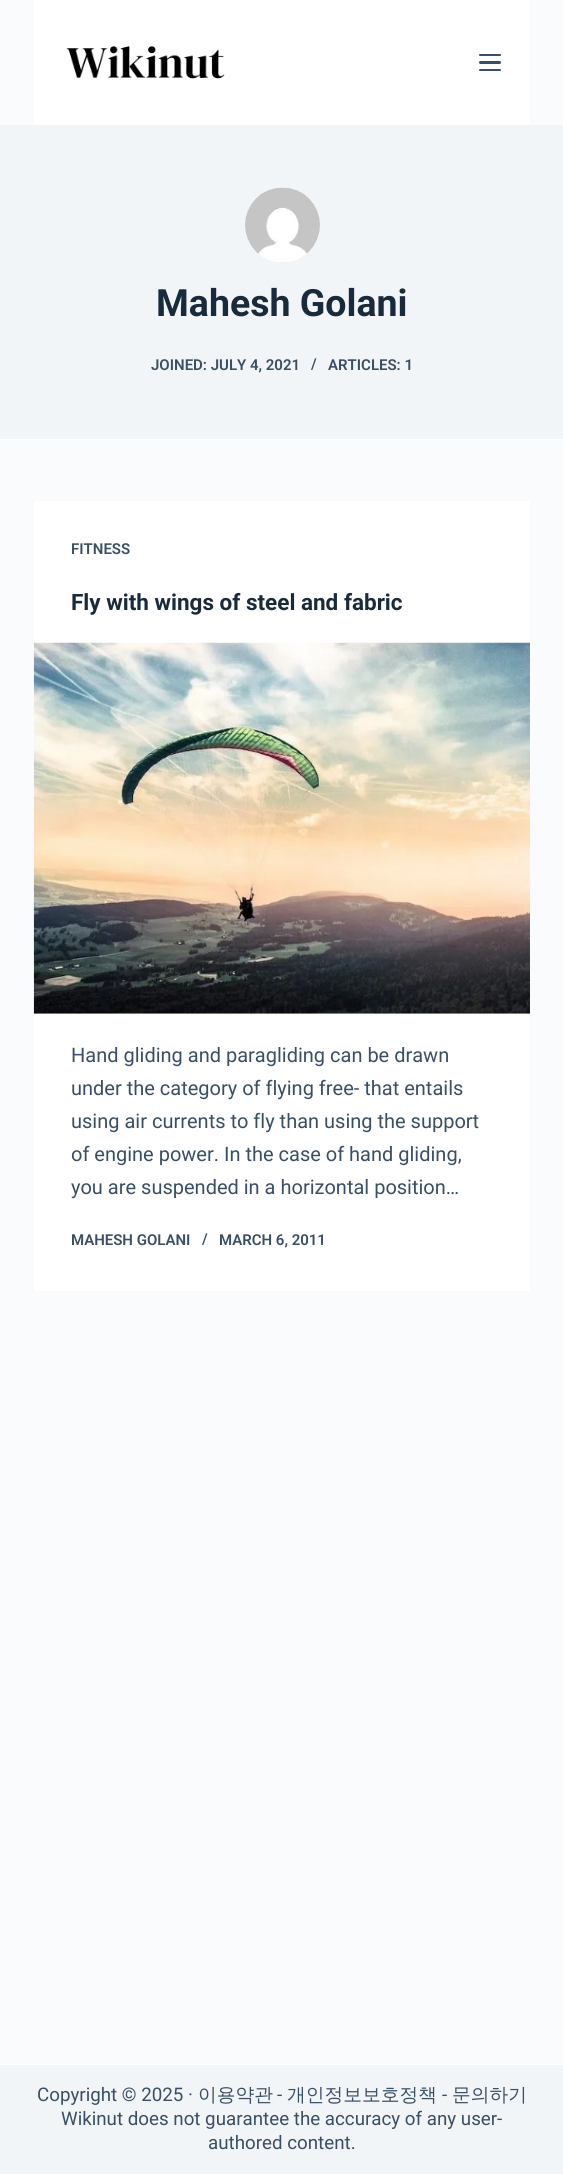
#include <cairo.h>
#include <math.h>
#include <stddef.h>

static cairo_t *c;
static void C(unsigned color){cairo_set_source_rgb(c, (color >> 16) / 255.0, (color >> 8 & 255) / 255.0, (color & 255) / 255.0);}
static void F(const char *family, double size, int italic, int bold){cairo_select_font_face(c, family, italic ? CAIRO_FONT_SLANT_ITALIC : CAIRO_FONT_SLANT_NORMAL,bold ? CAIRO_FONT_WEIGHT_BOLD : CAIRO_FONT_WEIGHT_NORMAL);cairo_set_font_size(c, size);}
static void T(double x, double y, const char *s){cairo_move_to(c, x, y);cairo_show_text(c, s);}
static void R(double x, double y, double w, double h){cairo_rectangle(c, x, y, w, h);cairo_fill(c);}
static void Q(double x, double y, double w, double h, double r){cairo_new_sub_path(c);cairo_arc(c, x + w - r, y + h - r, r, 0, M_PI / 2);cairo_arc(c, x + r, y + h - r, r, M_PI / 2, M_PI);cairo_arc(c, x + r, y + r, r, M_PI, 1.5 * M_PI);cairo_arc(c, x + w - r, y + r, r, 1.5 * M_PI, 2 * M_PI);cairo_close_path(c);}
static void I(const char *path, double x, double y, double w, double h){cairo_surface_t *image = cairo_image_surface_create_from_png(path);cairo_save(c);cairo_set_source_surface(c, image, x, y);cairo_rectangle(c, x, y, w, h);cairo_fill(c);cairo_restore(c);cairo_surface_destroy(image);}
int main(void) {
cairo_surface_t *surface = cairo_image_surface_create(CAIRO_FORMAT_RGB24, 563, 2174);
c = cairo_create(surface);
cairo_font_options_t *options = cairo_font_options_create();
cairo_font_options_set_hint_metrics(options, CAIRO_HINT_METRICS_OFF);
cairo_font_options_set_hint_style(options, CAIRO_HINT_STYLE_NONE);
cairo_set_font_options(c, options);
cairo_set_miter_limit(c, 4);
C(0xfafbfc);
cairo_paint(c);
C(0xffffff);
R(34,0,496,125);
I("1.png",66,46,159,33);
C(0x3a4f66);
Q(479,54,22,2,1);
cairo_fill(c);
Q(479,61,22,3,1.5);
cairo_fill(c);
Q(479,69,22,2,1);
cairo_fill(c);
C(0xf2f5f7);
R(0,125,563,314);
I("2.png",245,187,75,75);
F("Roboto",37.5,0,1);
C(0x192a3d);
T(156,316,"Mahesh Golani");
F("Roboto SemiBold",15,0,0);
C(0x3a4f66);
T(151,370,"JOINED: JULY 4, 2021");
T(311,369,"/");
T(328,370,"ARTICLES: 1");
C(0xffffff);
R(34,501,496,790);
C(0x3a4f66);
T(71,554,"FITNESS");
F("Roboto",22.5,0,1);
C(0x192a3d);
T(71,610,"Fly with wings of steel and fabric");
I("3.png",33,642,497,372);
F("Roboto",20,0,0);
C(0x3a4f66);
T(71,1062,"Hand gliding and paragliding can be drawn");
T(71,1095,"under the category of flying free- that entails");
T(71,1128,"using air currents to fly than using the support");
T(71,1161,"of engine power. In the case of hand gliding,");
T(71,1194,"you are suspended in a horizontal position…");
F("Roboto SemiBold",15,0,0);
T(71,1245,"MAHESH GOLANI");
T(202,1244,"/");
T(219,1245,"MARCH 6, 2011");
C(0xf2f5f7);
R(0,2065,563,109);
F("Roboto",18.75,0,0);
C(0x3a4f66);
T(37,2101,"Copyright © 2025 ·");
F("WenQuanYi Zen Hei Medium",18.75,0,0);
T(198,2101,"이용약관");
F("Roboto",18.75,0,0);
T(277,2101,"-");
F("WenQuanYi Zen Hei Medium",18.75,0,0);
T(287,2101,"개인정보보호정책");
F("Roboto",18.75,0,0);
T(442,2101,"-");
F("WenQuanYi Zen Hei Medium",18.75,0,0);
T(452,2101,"문의하기");
F("Roboto",18.75,0,0);
T(61,2125,"Wikinut does not guarantee the accuracy of any user-");
T(208,2149,"authored content.");
cairo_surface_write_to_png(surface, "o.png");
cairo_font_options_destroy(options);
cairo_destroy(c);
cairo_surface_destroy(surface);
return 0;
}
